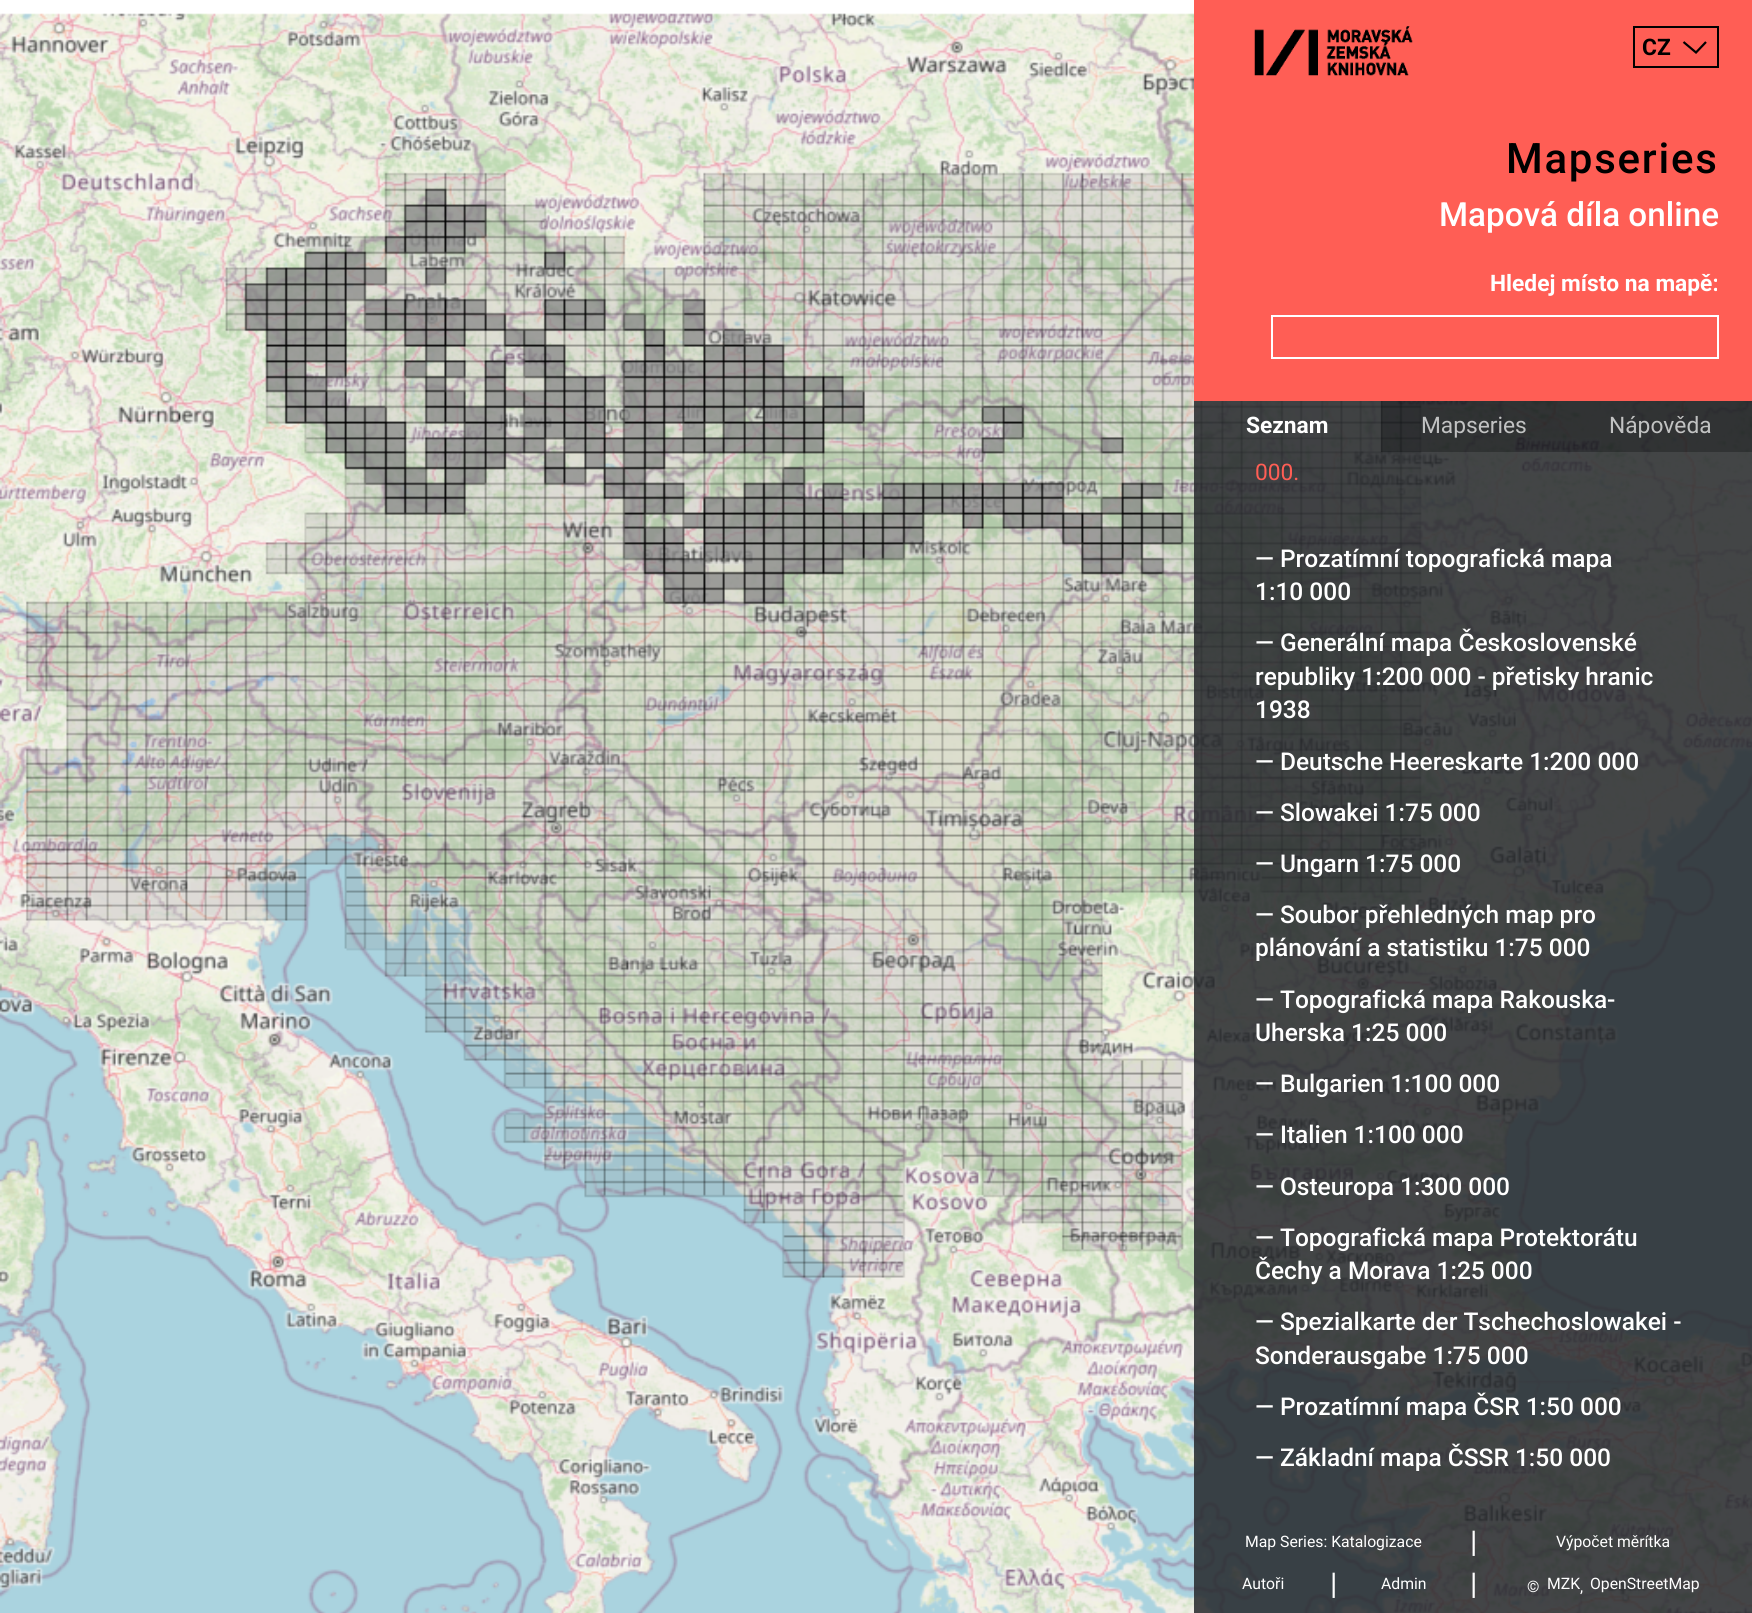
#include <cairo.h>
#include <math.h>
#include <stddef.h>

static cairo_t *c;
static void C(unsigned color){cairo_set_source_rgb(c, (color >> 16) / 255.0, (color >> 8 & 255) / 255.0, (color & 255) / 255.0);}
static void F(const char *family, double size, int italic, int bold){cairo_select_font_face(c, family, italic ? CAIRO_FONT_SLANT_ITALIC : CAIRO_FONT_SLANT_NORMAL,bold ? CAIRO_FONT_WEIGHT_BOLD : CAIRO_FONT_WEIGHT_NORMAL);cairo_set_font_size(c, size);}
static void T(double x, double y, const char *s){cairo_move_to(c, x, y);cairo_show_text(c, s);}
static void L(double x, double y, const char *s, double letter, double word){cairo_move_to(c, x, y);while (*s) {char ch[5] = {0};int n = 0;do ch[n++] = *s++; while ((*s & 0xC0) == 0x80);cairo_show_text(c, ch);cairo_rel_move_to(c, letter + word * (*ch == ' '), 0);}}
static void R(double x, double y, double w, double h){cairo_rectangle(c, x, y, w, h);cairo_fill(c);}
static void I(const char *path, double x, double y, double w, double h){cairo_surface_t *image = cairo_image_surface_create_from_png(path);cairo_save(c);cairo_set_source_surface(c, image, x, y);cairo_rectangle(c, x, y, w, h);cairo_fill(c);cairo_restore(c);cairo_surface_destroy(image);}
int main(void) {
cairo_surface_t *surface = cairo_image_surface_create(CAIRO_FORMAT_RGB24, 1752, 1613);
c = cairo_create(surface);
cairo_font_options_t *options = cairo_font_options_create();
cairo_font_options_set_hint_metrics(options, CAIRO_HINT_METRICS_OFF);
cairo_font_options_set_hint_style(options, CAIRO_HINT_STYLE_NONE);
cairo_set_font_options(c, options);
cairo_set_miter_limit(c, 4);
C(0xffffff);
cairo_paint(c);
I("1.png",0,13,1752,1600);
C(0xff5e55);
R(1194,0,558,401);
I("2.png",1254,26,159,50);
cairo_new_path(c);
cairo_move_to(c,1683.5,42);
cairo_line_to(c,1696,52.5);
cairo_line_to(c,1706,42);
C(0x000000);
cairo_set_line_width(c,2.2);
cairo_stroke(c);
cairo_rectangle(c,1634,27,84,40);
cairo_set_line_width(c,2);
cairo_stroke(c);
F("Roboto",22.75,0,1);
T(1642,55,"CZ");
F("Roboto Medium",42,0,0);
L(1506,173,"Mapseries",1.75,0);
F("Roboto Medium",33.25,0,0);
C(0xffffff);
T(1439,226,"Mapová díla online");
F("Roboto",22.75,0,1);
T(1490,291,"Hledej místo na mapě:");
cairo_rectangle(c,1272,316,446,42);
cairo_stroke(c);
cairo_set_source_rgba(c,0.145,0.153,0.169,0.85);
R(1194,401,187,51);
C(0xffffff);
T(1246,433,"Seznam");
cairo_set_source_rgba(c,0.063,0.071,0.086,0.85);
R(1381,401,185,51);
F("Roboto",22.75,0,0);
C(0xc1c2c2);
T(1421,433,"Mapseries");
cairo_set_source_rgba(c,0.063,0.071,0.086,0.85);
R(1566,401,186,51);
C(0xc1c2c2);
T(1609,433,"Nápověda");
cairo_set_source_rgba(c,0.145,0.153,0.169,0.85);
R(1194,452,558,1027);
C(0xff5e55);
T(1255,480,"000.");
F("Roboto Medium",24.5,0,0);
C(0xffffff);
T(1255,567,"— Prozatímní topografická mapa");
T(1255,600,"1:10 000");
T(1255,651,"— Generální mapa Československé");
T(1255,685,"republiky 1:200 000 - přetisky hranic");
T(1255,718,"1938");
T(1255,770,"— Deutsche Heereskarte 1:200 000");
T(1255,821,"— Slowakei 1:75 000");
T(1255,872,"— Ungarn 1:75 000");
T(1255,923,"— Soubor přehledných map pro");
T(1255,956,"plánování a statistiku 1:75 000");
T(1255,1008,"— Topografická mapa Rakouska-");
T(1255,1041,"Uherska 1:25 000");
T(1255,1092,"— Bulgarien 1:100 000");
T(1255,1143,"— Italien 1:100 000");
T(1255,1195,"— Osteuropa 1:300 000");
T(1255,1246,"— Topografická mapa Protektorátu");
T(1255,1279,"Čechy a Morava 1:25 000");
T(1255,1330,"— Spezialkarte der Tschechoslowakei -");
T(1255,1364,"Sonderausgabe 1:75 000");
T(1255,1415,"— Prozatímní mapa ČSR 1:50 000");
T(1255,1466,"— Základní mapa ČSSR 1:50 000");
cairo_set_source_rgba(c,0.145,0.153,0.169,0.85);
R(1194,1479,558,134);
F("Roboto",15.75,0,0);
C(0xffffff);
T(1245,1547,"Map Series: Katalogizace");
F("Roboto",30,0,0);
T(1470,1552,"|");
F("Roboto",15.75,0,0);
T(1556,1547,"Výpočet měrítka");
T(1242,1589,"Autoři");
F("Roboto",30,0,0);
T(1330,1594,"|");
F("Roboto",15.75,0,0);
T(1381,1589,"Admin");
F("Roboto",30,0,0);
T(1470,1594,"|");
F("Roboto",15.75,0,0);
T(1527,1592,"©");
T(1547,1589,"MZK");
T(1580,1592,",");
T(1590,1589,"OpenStreetMap");
cairo_surface_write_to_png(surface, "o.png");
cairo_font_options_destroy(options);
cairo_destroy(c);
cairo_surface_destroy(surface);
return 0;
}
